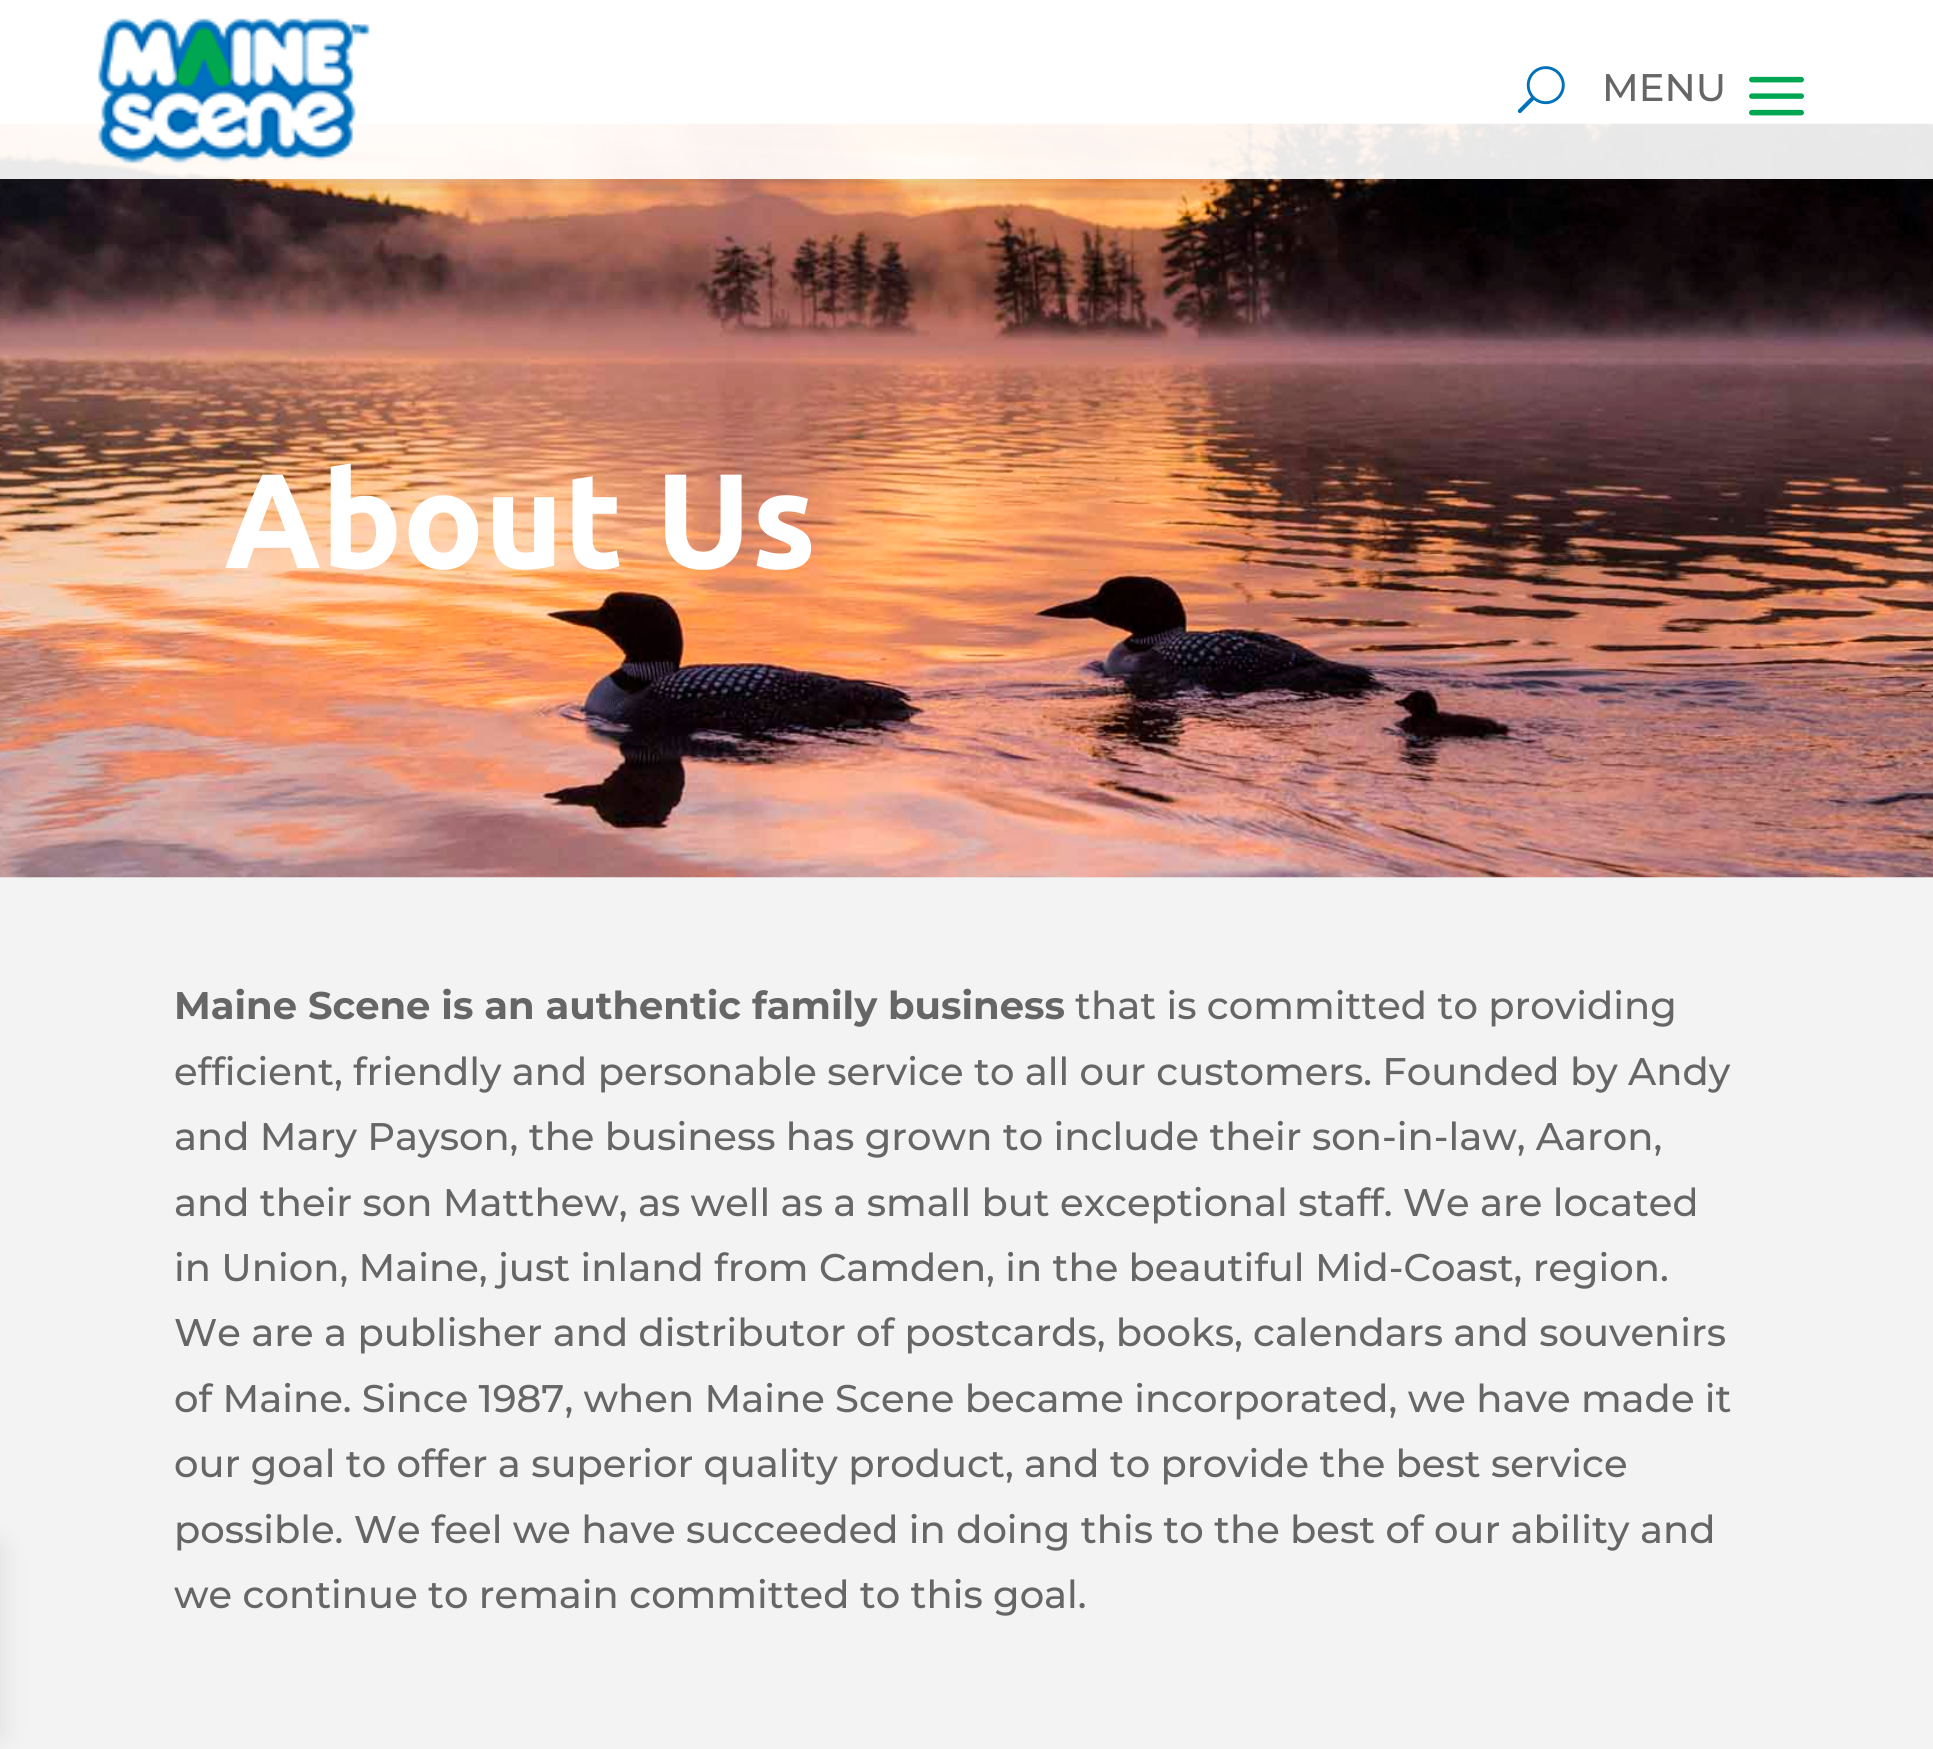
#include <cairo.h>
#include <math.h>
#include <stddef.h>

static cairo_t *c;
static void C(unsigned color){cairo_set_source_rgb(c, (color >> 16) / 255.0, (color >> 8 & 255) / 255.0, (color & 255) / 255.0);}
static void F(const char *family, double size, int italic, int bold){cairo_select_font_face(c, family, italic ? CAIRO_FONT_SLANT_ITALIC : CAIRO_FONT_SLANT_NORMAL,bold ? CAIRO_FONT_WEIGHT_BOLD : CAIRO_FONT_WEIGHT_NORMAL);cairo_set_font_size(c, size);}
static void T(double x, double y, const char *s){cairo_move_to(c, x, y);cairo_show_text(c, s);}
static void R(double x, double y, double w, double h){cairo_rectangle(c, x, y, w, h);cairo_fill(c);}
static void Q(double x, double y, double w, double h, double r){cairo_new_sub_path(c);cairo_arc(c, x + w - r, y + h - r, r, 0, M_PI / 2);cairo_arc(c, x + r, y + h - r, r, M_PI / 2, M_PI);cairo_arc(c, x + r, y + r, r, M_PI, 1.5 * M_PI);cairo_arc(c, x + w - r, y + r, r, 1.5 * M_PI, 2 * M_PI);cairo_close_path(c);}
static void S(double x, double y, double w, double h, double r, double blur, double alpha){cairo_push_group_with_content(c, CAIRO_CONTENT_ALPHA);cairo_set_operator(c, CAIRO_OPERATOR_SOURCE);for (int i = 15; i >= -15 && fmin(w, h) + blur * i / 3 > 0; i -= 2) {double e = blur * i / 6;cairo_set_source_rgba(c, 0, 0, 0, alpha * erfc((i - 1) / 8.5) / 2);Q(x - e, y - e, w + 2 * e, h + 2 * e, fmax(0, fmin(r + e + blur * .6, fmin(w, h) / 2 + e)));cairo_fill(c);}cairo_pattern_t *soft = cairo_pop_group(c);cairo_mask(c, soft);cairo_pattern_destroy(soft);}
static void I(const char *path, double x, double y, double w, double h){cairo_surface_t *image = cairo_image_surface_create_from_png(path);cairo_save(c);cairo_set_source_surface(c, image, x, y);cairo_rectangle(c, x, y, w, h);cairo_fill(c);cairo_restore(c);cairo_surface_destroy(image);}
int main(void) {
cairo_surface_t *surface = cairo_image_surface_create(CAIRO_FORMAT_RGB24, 1933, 1749);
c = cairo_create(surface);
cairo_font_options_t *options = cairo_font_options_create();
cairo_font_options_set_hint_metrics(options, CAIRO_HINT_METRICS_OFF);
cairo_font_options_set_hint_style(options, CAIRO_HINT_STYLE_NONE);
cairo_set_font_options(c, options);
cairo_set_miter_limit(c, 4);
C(0xffffff);
cairo_paint(c);
I("4.png",0,123,1933,755);
cairo_set_source_rgba(c,0,0,0,0.05);
R(0,877,1933,872);
C(0x000000);
S(-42,1548,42,187,0,14,.1);
cairo_save(c);
cairo_rectangle(c,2,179,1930,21);
cairo_clip(c);
S(17,17,1900,145,0,25,.3);
cairo_restore(c);
cairo_set_source_rgba(c,1,1,1,0.91);
R(0,123,1933,56);
I("1.png",98,18,272,146);
I("2.png",1517,66,48,48);
F("Montserrat Medium",38.5,0,0);
C(0x666666);
T(1602,101,"MENU");
I("3.png",1749,76,55,40);
F("Ubuntu",134.75,0,1);
C(0xffffff);
T(224,568,"About Us");
F("Montserrat",38.5,0,1);
C(0x666666);
T(174,1019,"Maine Scene is an authentic family business");
F("Montserrat Medium",38.5,0,0);
T(1075,1019,"that is committed to providing");
T(174,1085,"efficient, friendly and personable service to all our customers. Founded by Andy");
T(174,1150,"and Mary Payson, the business has grown to include their son-in-law, Aaron,");
T(174,1216,"and their son Matthew, as well as a small but exceptional staff. We are located");
T(174,1281,"in Union, Maine, just inland from Camden, in the beautiful Mid-Coast, region.");
T(174,1346,"We are a publisher and distributor of postcards, books, calendars and souvenirs");
T(174,1412,"of Maine. Since 1987, when Maine Scene became incorporated, we have made it");
T(174,1477,"our goal to offer a superior quality product, and to provide the best service");
T(174,1543,"possible. We feel we have succeeded in doing this to the best of our ability and");
T(174,1608,"we continue to remain committed to this goal.");
cairo_surface_write_to_png(surface, "o.png");
cairo_font_options_destroy(options);
cairo_destroy(c);
cairo_surface_destroy(surface);
return 0;
}
